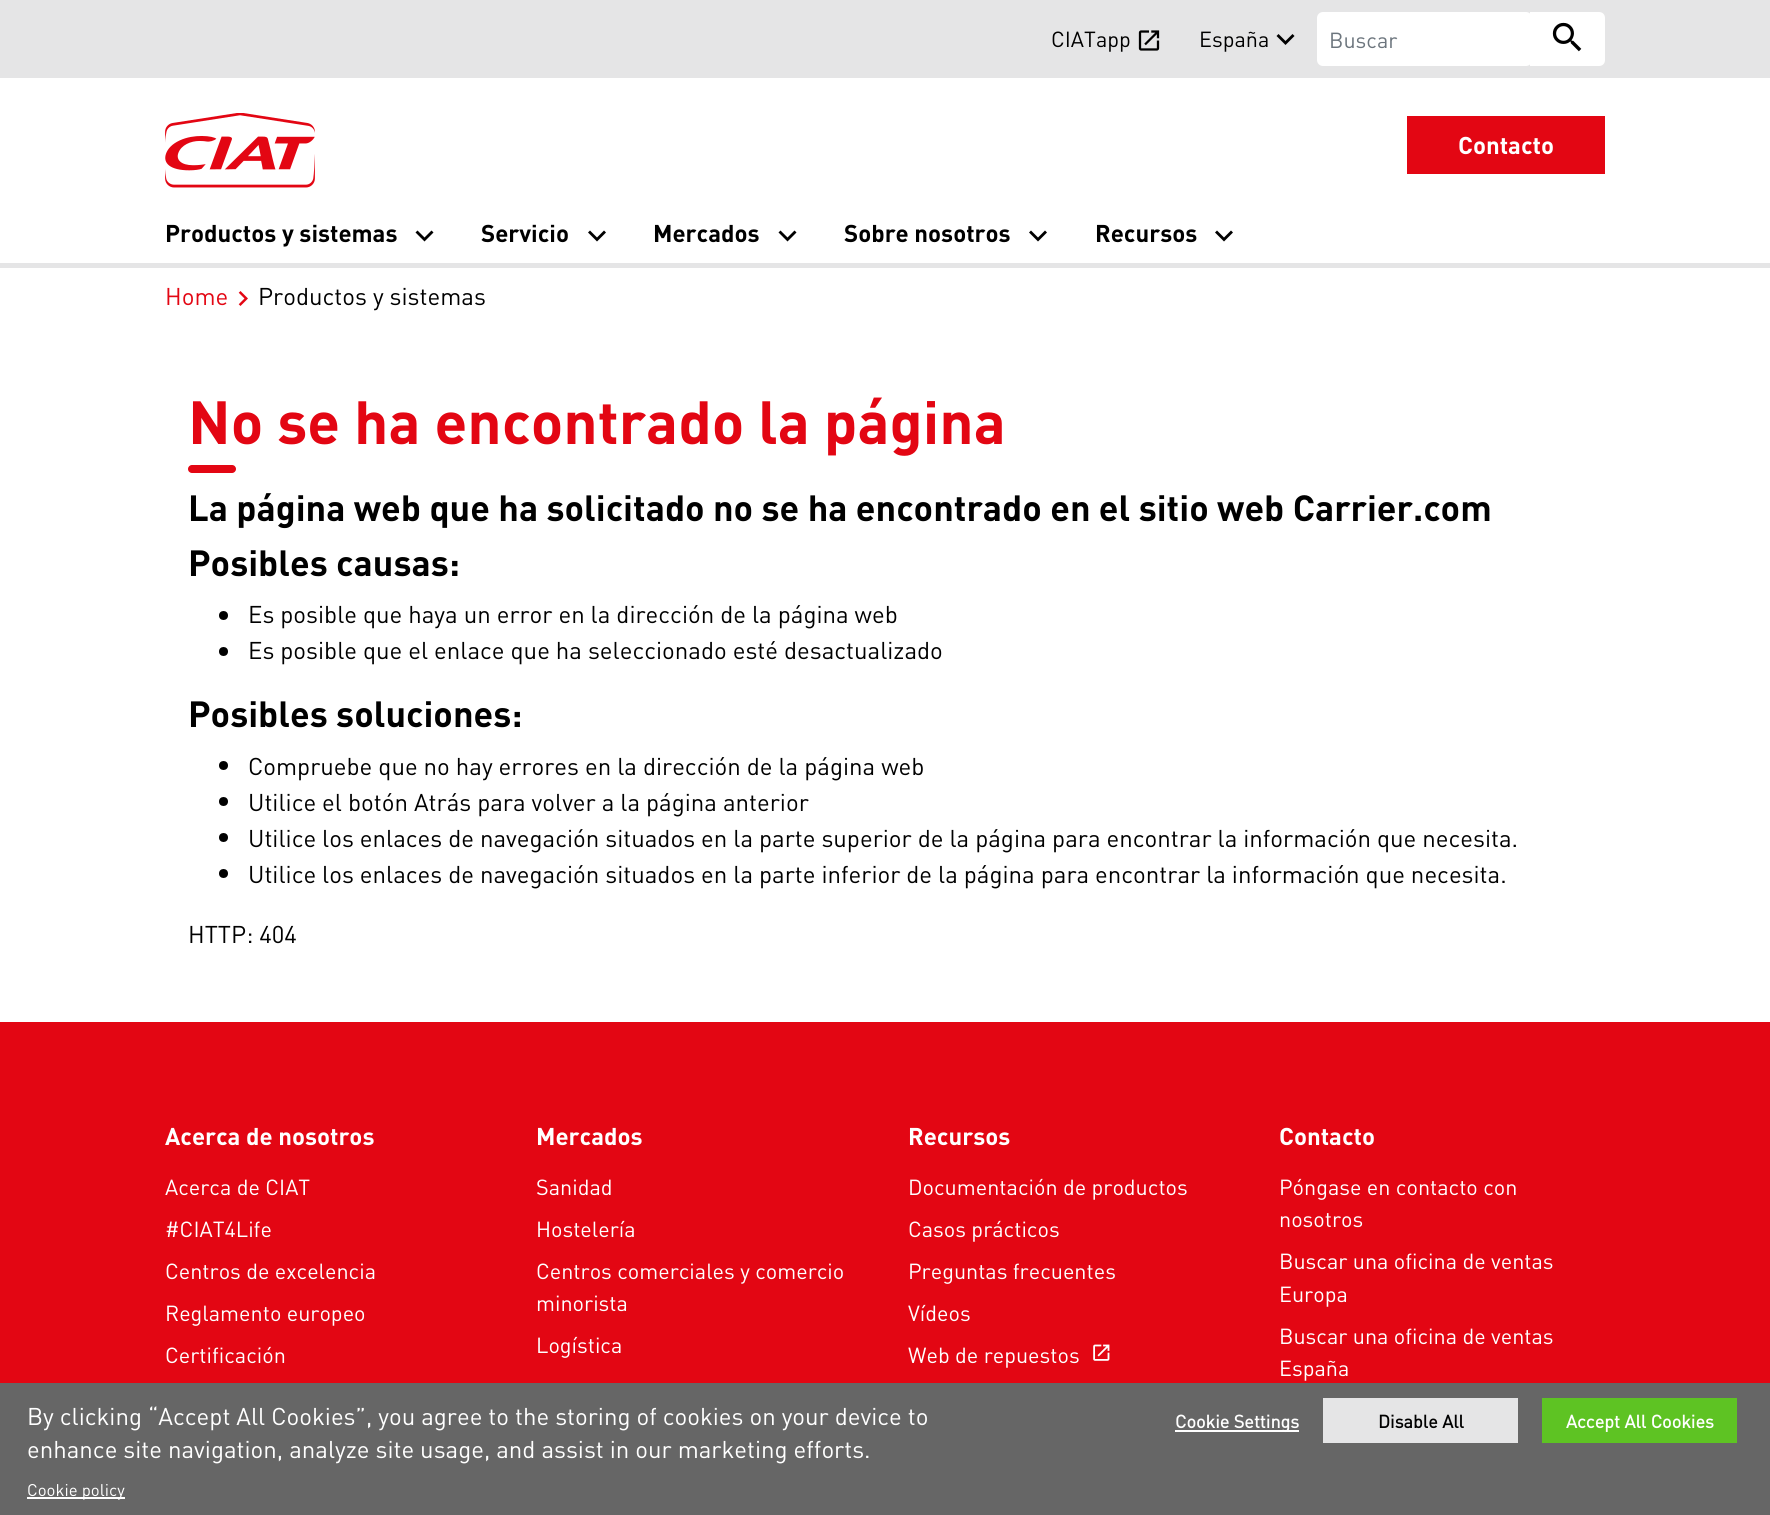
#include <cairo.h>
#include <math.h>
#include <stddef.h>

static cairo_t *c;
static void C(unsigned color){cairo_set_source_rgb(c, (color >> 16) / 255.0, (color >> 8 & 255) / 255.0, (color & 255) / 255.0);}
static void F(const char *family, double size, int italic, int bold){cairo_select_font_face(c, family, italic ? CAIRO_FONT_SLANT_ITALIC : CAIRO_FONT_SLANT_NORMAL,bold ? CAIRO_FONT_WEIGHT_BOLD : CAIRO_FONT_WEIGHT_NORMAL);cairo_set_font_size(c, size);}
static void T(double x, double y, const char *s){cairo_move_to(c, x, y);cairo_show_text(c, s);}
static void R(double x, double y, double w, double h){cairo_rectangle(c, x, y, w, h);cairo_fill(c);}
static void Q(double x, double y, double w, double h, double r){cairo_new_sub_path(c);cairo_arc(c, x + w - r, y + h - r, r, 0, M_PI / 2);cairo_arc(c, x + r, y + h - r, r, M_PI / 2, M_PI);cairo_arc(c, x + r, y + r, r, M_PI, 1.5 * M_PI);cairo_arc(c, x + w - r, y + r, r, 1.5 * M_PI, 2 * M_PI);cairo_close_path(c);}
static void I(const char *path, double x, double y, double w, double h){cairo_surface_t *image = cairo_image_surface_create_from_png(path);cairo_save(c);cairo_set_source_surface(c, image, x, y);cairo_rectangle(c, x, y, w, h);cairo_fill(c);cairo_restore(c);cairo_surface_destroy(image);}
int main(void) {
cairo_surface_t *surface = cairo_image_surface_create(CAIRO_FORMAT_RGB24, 1770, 1515);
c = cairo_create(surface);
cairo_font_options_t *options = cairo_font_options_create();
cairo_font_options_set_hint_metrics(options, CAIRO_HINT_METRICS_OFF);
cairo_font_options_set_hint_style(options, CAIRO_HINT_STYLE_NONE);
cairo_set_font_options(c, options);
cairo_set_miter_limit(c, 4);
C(0xffffff);
cairo_paint(c);
C(0xe5e5e6);
R(0,263,1770,5);
R(0,0,1770,78);
F("DIN",21.6,0,0);
C(0x000000);
T(1051,47,"CIATapp");
I("1.png",1138,30,22,21);
T(1199,47,"España");
cairo_new_path(c);
cairo_move_to(c,1278.5,34);
cairo_line_to(c,1285.5,41);
cairo_line_to(c,1292.5,34);
cairo_line_to(c,1294.5,36);
cairo_line_to(c,1285.5,45);
cairo_line_to(c,1276.5,36);
cairo_close_path(c);
cairo_fill(c);
C(0xffffff);
Q(1317,12,215,54,6);
cairo_fill(c);
C(0x6c757d);
T(1329,48,"Buscar");
C(0xffffff);
cairo_new_path(c);
cairo_move_to(c,1530,12);
cairo_line_to(c,1599,12);
cairo_curve_to(c,1602.5,12,1605,14.5,1605,18);
cairo_line_to(c,1605,60);
cairo_curve_to(c,1605,63.5,1602.5,66,1599,66);
cairo_line_to(c,1530,66);
cairo_close_path(c);
cairo_fill(c);
I("2.png",1552,22,30,30);
I("3.png",165,113,150,75);
C(0xe30613);
R(1407,116,198,58);
F("DIN",24,0,1);
C(0xffffff);
T(1458,154,"Contacto");
C(0x000000);
T(165,242,"Productos y sistemas");
cairo_new_path(c);
cairo_move_to(c,417.5,230.5);
cairo_line_to(c,424.5,237.5);
cairo_line_to(c,431.5,230.5);
cairo_line_to(c,433.5,232.5);
cairo_line_to(c,424.5,241.5);
cairo_line_to(c,415.5,232.5);
cairo_close_path(c);
cairo_fill(c);
T(481,242,"Servicio");
cairo_new_path(c);
cairo_move_to(c,590,230.5);
cairo_line_to(c,597,237.5);
cairo_line_to(c,604,230.5);
cairo_line_to(c,606,232.5);
cairo_line_to(c,597,241.5);
cairo_line_to(c,588,232.5);
cairo_close_path(c);
cairo_fill(c);
T(653,242,"Mercados");
cairo_new_path(c);
cairo_move_to(c,780.5,230.5);
cairo_line_to(c,787.5,237.5);
cairo_line_to(c,794.5,230.5);
cairo_line_to(c,796.5,232.5);
cairo_line_to(c,787.5,241.5);
cairo_line_to(c,778.5,232.5);
cairo_close_path(c);
cairo_fill(c);
T(844,242,"Sobre nosotros");
cairo_new_path(c);
cairo_move_to(c,1031,230.5);
cairo_line_to(c,1038,237.5);
cairo_line_to(c,1045,230.5);
cairo_line_to(c,1047,232.5);
cairo_line_to(c,1038,241.5);
cairo_line_to(c,1029,232.5);
cairo_close_path(c);
cairo_fill(c);
T(1095,242,"Recursos");
cairo_new_path(c);
cairo_move_to(c,1217,230.5);
cairo_line_to(c,1224,237.5);
cairo_line_to(c,1231,230.5);
cairo_line_to(c,1233,232.5);
cairo_line_to(c,1224,241.5);
cairo_line_to(c,1215,232.5);
cairo_close_path(c);
cairo_fill(c);
F("DIN",24,0,0);
C(0xe30613);
T(165,305,"Home");
I("4.png",238,291,10,15);
C(0x000000);
T(258,305,"Productos y sistemas");
F("DIN",60,0,1);
C(0xe30613);
T(188,444,"No se ha encontrado la página");
Q(188,465,48,8,4);
cairo_fill(c);
F("DIN",36,0,1);
C(0x000000);
T(188,521,"La página web que ha solicitado no se ha encontrado en el sitio web Carrier.com");
T(188,576,"Posibles causas:");
cairo_new_path(c);
cairo_arc(c,223.5,615.5,4.5,0,2 * M_PI);
cairo_fill(c);
F("DIN",24,0,0);
T(248,623,"Es posible que haya un error en la dirección de la página web");
cairo_new_path(c);
cairo_arc(c,223.5,651.5,4.5,0,2 * M_PI);
cairo_fill(c);
T(248,659,"Es posible que el enlace que ha seleccionado esté desactualizado");
F("DIN",36,0,1);
T(188,727,"Posibles soluciones:");
cairo_new_path(c);
cairo_arc(c,223.5,765.5,4.5,0,2 * M_PI);
cairo_fill(c);
F("DIN",24,0,0);
T(248,775,"Compruebe que no hay errores en la dirección de la página web");
cairo_new_path(c);
cairo_arc(c,223.5,801.5,4.5,0,2 * M_PI);
cairo_fill(c);
T(248,811,"Utilice el botón Atrás para volver a la página anterior");
cairo_new_path(c);
cairo_arc(c,223.5,837.5,4.5,0,2 * M_PI);
cairo_fill(c);
T(248,847,"Utilice los enlaces de navegación situados en la parte superior de la página para encontrar la información que necesita.");
cairo_new_path(c);
cairo_arc(c,223.5,873.5,4.5,0,2 * M_PI);
cairo_fill(c);
T(248,883,"Utilice los enlaces de navegación situados en la parte inferior de la página para encontrar la información que necesita.");
T(188,943,"HTTP: 404");
C(0xe30613);
R(0,1022,1770,361);
F("DIN",24,0,1);
C(0xffffff);
T(165,1145,"Acerca de nosotros");
F("DIN",21.6,0,0);
T(165,1195,"Acerca de CIAT");
T(165,1237,"#CIAT4Life");
T(165,1279,"Centros de excelencia");
T(165,1321,"Reglamento europeo");
T(165,1363,"Certificación");
F("DIN",24,0,1);
T(536,1145,"Mercados");
F("DIN",21.6,0,0);
T(536,1195,"Sanidad");
T(536,1237,"Hostelería");
T(536,1279,"Centros comerciales y comercio");
T(536,1311,"minorista");
T(536,1353,"Logística");
F("DIN",24,0,1);
T(908,1145,"Recursos");
F("DIN",21.6,0,0);
T(908,1195,"Documentación de productos");
T(908,1237,"Casos prácticos");
T(908,1279,"Preguntas frecuentes");
T(908,1321,"Vídeos");
T(908,1363,"Web de repuestos");
I("5.png",1093,1344,17,17);
F("DIN",24,0,1);
T(1279,1145,"Contacto");
F("DIN",21.6,0,0);
T(1279,1195,"Póngase en contacto con");
T(1279,1227,"nosotros");
T(1279,1269,"Buscar una oficina de ventas");
T(1279,1302,"Europa");
T(1279,1344,"Buscar una oficina de ventas");
T(1279,1376,"España");
C(0x666666);
R(0,1383,1770,132);
F("DIN",24,0,0);
C(0xffffff);
T(27,1425,"By clicking “Accept All Cookies”, you agree to the storing of cookies on your device to");
T(27,1458,"enhance site navigation, analyze site usage, and assist in our marketing efforts.");
R(27,1497,98,2);
F("DIN",16.75,0,0);
T(27,1496,"Cookie policy");
R(1175,1430,124,2);
F("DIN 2",18,0,1);
T(1175,1428,"Cookie Settings");
C(0xe5e5e6);
R(1323,1398,195,45);
C(0x000000);
T(1378,1428,"Disable All");
C(0x5ec323);
R(1542,1398,195,45);
C(0xffffff);
T(1566,1428,"Accept All Cookies");
cairo_surface_write_to_png(surface, "o.png");
cairo_font_options_destroy(options);
cairo_destroy(c);
cairo_surface_destroy(surface);
return 0;
}
